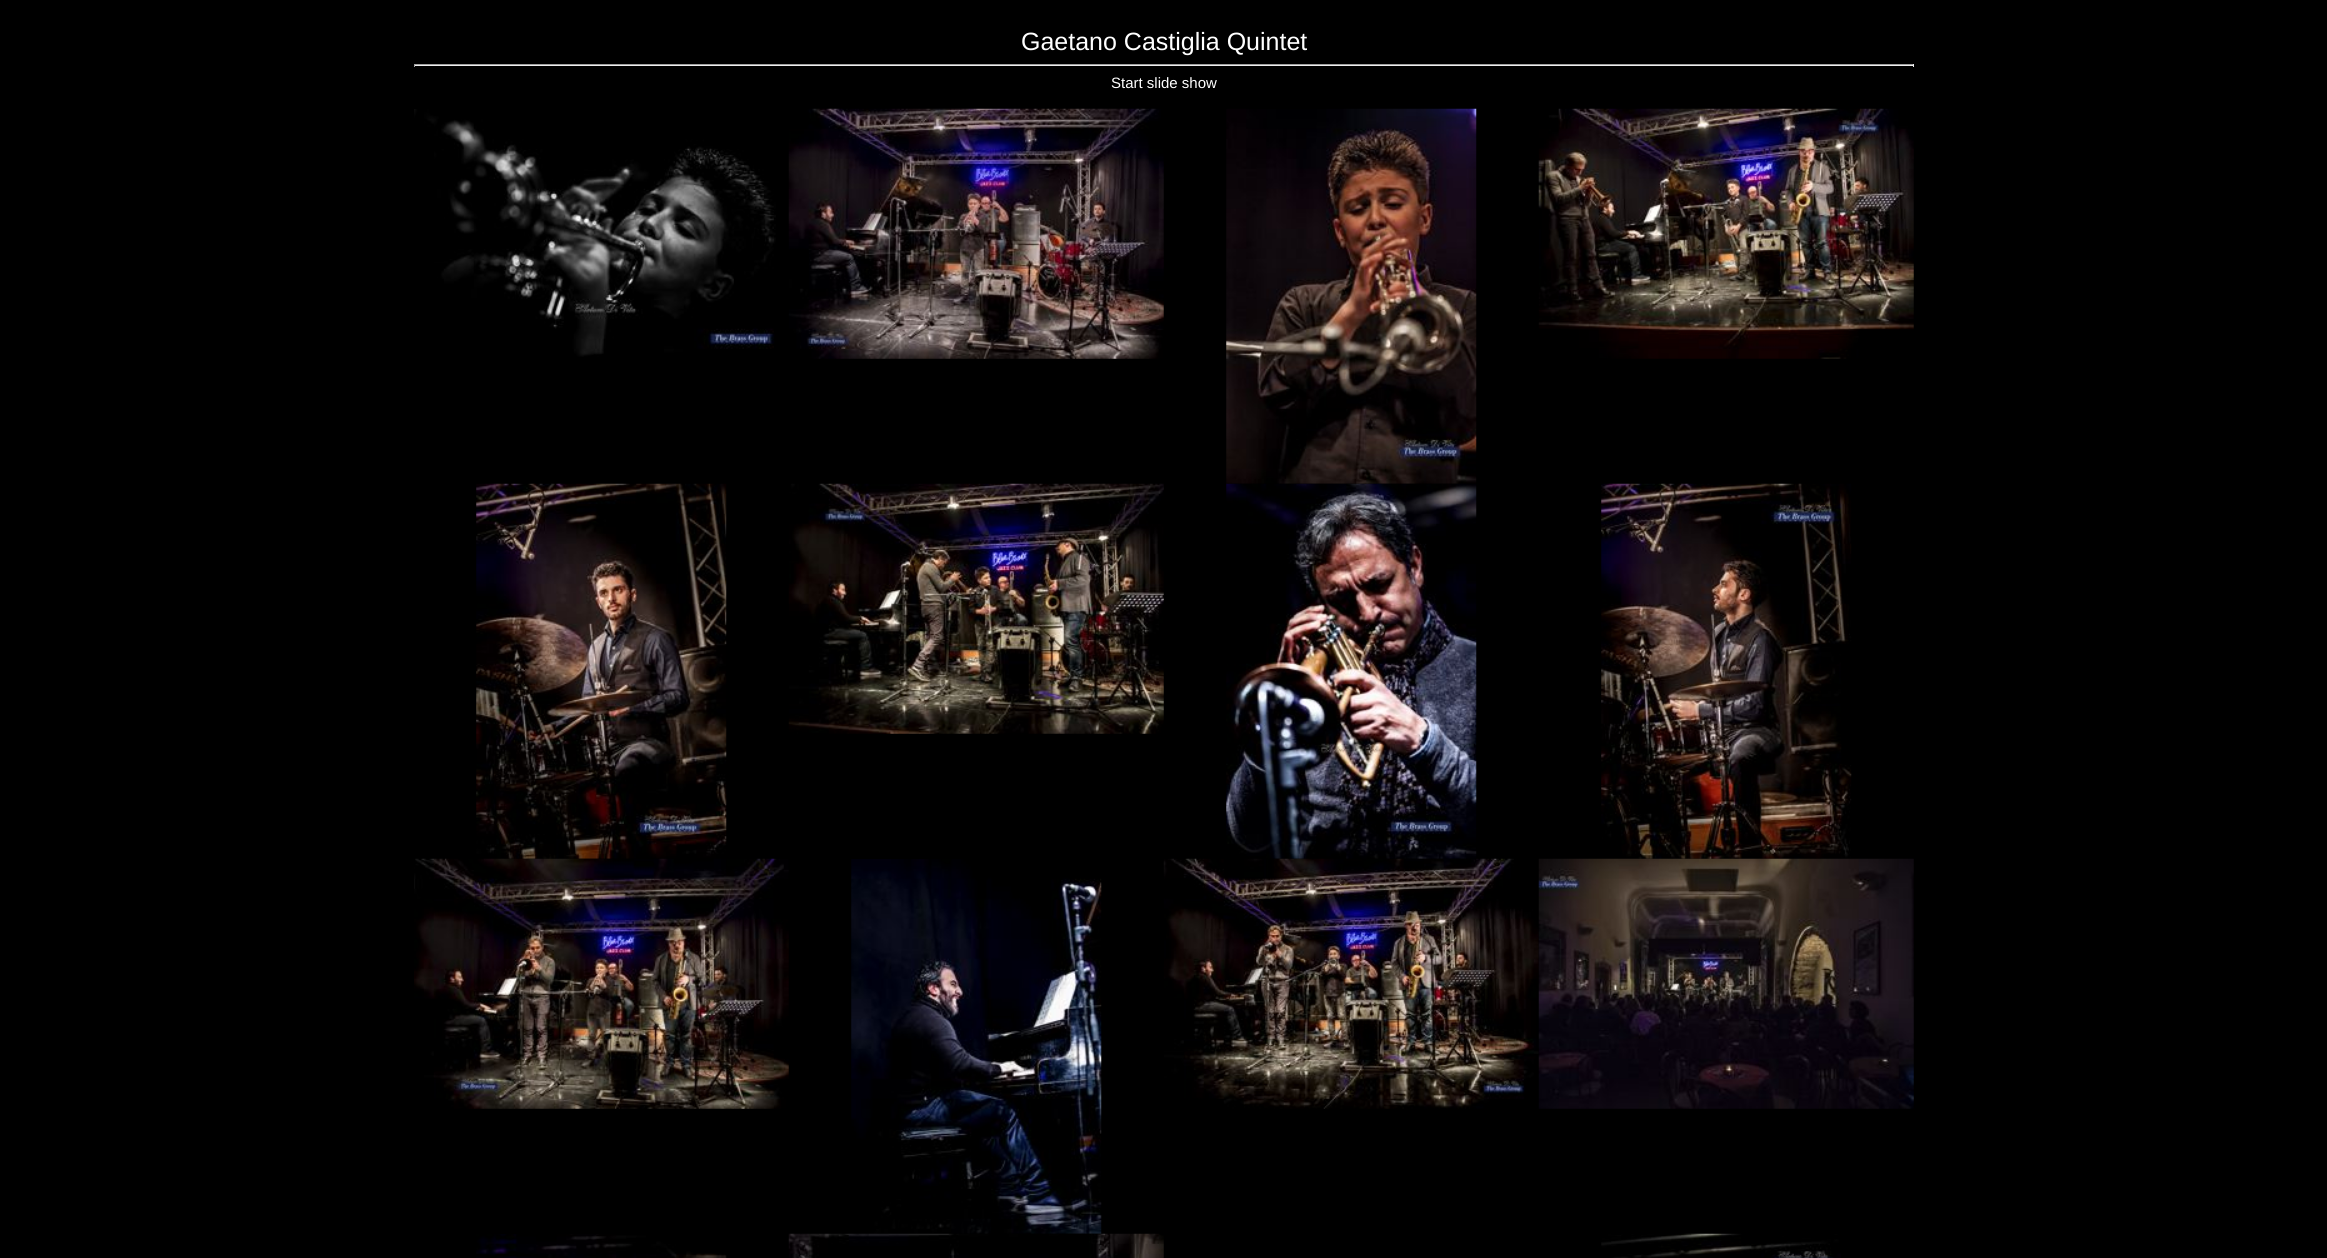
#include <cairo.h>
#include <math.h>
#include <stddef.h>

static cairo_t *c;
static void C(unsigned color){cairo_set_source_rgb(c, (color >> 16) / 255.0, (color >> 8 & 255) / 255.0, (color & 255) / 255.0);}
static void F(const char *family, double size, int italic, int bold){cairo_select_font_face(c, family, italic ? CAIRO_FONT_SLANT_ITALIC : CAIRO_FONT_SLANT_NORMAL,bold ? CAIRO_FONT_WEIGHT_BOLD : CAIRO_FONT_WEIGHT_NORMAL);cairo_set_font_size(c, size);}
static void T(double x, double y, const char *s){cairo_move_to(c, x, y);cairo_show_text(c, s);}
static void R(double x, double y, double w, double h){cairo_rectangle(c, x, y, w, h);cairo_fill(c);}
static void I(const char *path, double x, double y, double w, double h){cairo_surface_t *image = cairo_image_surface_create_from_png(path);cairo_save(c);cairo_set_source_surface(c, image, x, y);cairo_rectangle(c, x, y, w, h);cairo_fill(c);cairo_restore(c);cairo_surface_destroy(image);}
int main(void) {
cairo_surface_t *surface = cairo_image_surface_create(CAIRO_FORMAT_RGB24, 2327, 1258);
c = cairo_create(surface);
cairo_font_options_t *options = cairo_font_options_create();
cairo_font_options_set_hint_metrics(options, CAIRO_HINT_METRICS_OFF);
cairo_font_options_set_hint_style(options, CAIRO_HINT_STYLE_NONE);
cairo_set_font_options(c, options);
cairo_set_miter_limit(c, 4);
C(0x000000);
cairo_paint(c);
F("Liberation Sans",25,0,0);
C(0xffffff);
T(1021,50,"Gaetano Castiglia Quintet");
C(0x9f9f9f);
R(414,64,1500,1);
C(0xeeeeee);
R(1913,64,1,3);
R(414,65,1500,1);
C(0x9f9f9f);
R(414,64,1,3);
F("Liberation Sans",15,0,0);
C(0xffffff);
T(1111,88,"Start slide show");
I("1.png",414,109,362,248);
I("2.png",788,108,376,251);
I("3.png",1226,108,251,376);
I("4.png",1538,108,376,251);
I("5.png",476,483,251,376);
I("6.png",788,483,376,251);
I("7.png",1226,483,251,376);
I("8.png",1601,483,251,376);
I("9.png",414,858,375,251);
I("10.png",851,859,251,375);
I("11.png",1163,858,376,251);
I("12.png",1538,858,376,251);
I("13.png",476,1234,251,24);
I("14.png",788,1233,376,25);
I("15.png",1601,1233,240,25);
cairo_surface_write_to_png(surface, "o.png");
cairo_font_options_destroy(options);
cairo_destroy(c);
cairo_surface_destroy(surface);
return 0;
}
